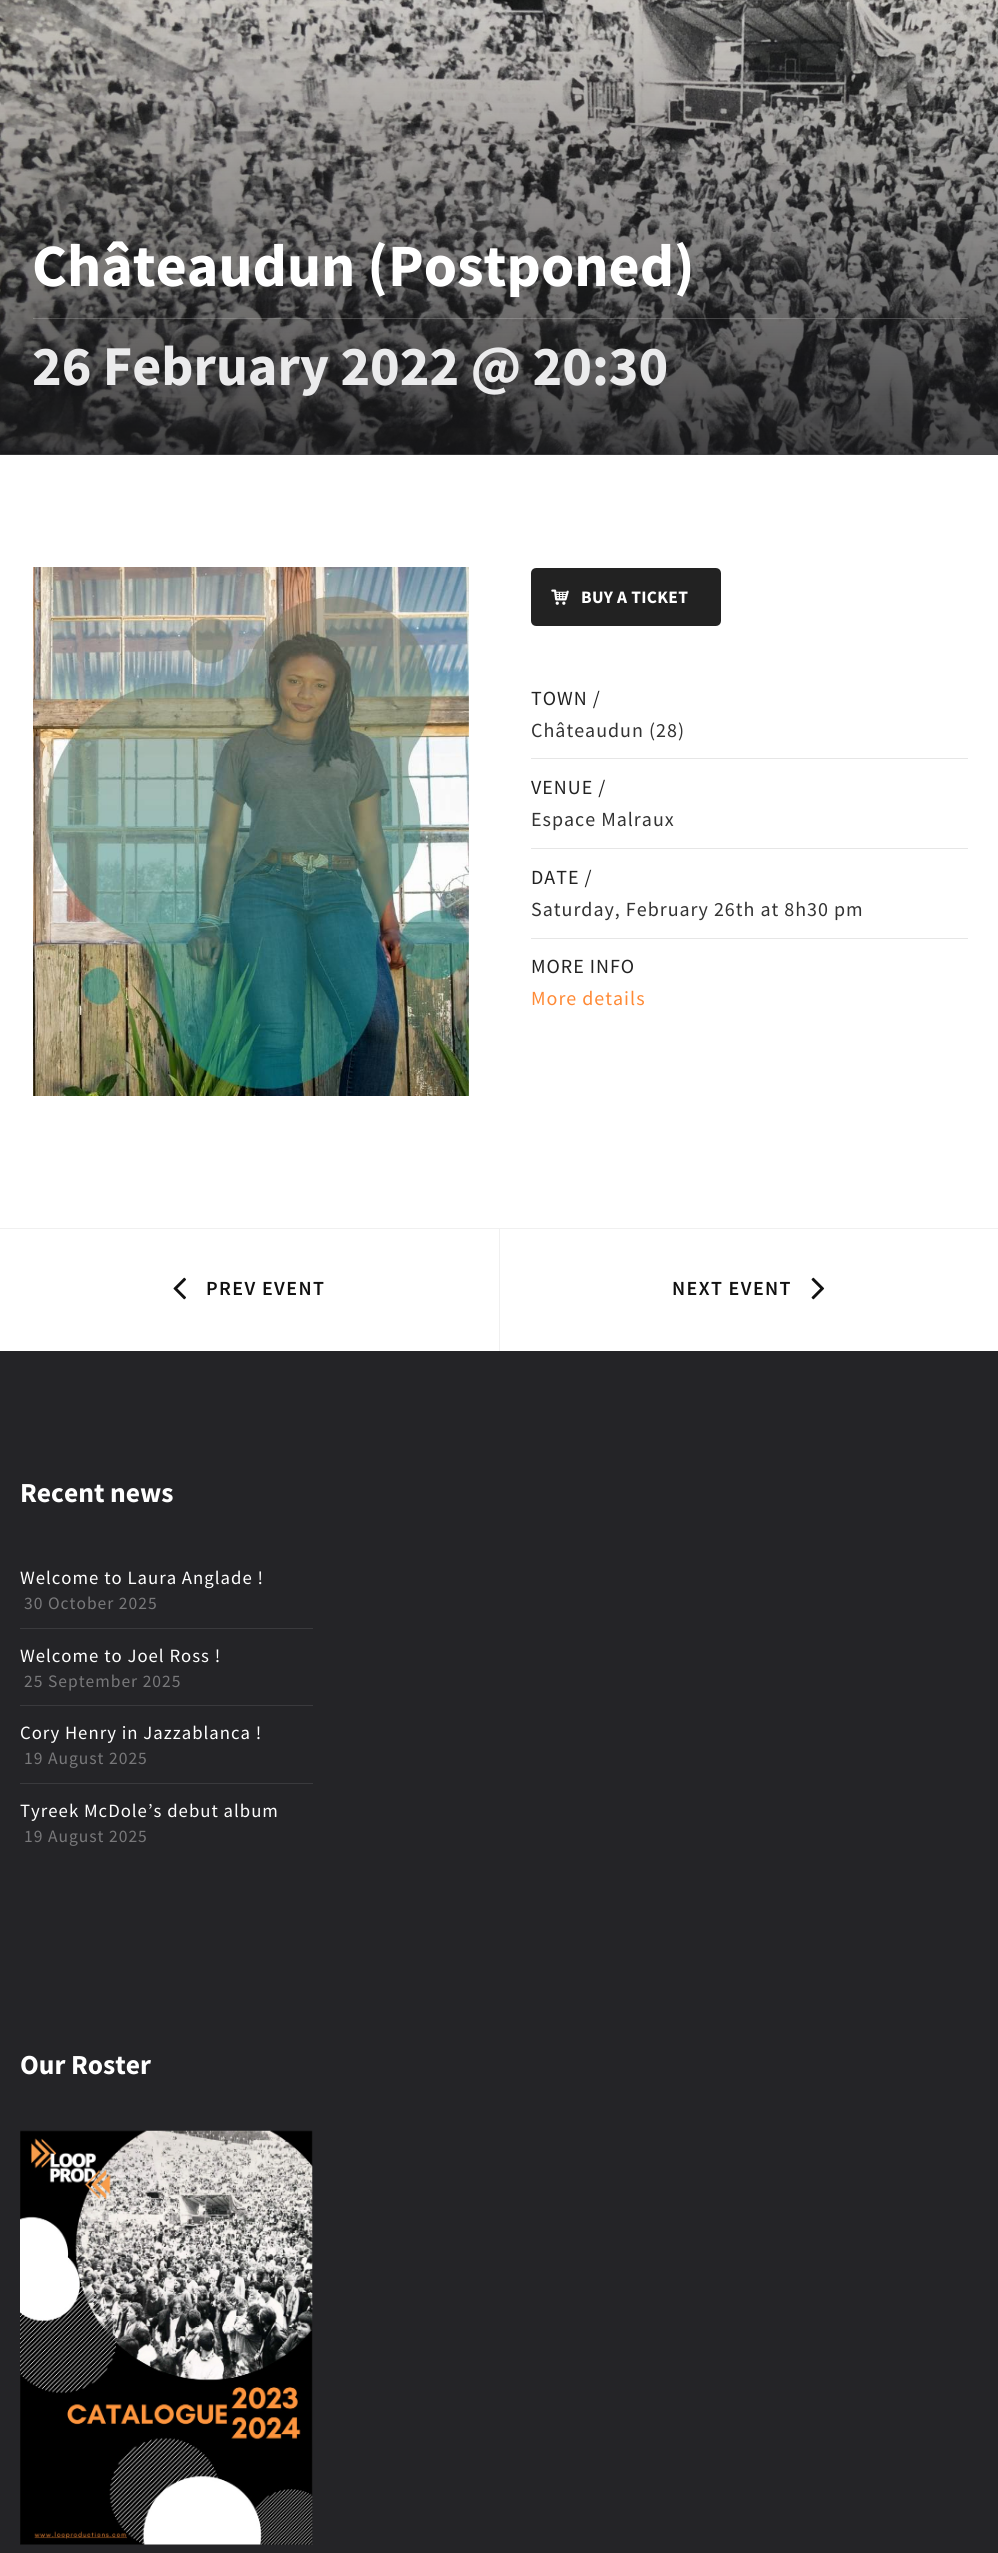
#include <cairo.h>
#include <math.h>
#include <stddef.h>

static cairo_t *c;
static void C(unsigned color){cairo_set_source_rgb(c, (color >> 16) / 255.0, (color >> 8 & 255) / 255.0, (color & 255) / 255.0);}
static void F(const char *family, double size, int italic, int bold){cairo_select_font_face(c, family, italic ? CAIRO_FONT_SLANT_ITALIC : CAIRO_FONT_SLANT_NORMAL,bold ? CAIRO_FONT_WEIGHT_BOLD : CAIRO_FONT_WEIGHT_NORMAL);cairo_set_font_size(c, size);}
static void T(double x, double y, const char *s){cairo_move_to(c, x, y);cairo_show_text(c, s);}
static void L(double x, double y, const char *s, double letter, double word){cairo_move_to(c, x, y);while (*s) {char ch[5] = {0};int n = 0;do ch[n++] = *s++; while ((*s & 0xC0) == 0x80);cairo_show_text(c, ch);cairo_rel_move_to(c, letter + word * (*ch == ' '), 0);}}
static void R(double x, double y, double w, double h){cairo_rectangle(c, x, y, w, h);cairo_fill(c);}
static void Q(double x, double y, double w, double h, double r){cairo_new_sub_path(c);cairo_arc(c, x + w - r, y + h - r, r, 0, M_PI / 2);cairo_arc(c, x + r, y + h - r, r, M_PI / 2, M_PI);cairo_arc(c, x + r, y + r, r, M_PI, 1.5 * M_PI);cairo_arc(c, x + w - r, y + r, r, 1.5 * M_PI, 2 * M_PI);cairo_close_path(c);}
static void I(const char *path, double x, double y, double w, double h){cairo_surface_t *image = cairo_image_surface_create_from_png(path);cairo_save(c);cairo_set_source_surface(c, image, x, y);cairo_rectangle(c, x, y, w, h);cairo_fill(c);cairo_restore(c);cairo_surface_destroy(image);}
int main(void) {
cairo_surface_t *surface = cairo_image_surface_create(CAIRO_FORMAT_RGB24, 998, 2553);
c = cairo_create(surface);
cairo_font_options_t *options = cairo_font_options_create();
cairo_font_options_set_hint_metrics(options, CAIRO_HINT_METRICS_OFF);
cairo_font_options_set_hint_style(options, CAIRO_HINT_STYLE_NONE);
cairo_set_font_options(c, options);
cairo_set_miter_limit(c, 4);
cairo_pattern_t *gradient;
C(0xffffff);
cairo_paint(c);
I("1.png",0,0,998,455);
gradient = cairo_pattern_create_linear(499,455,499,-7.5);
cairo_pattern_add_color_stop_rgba(gradient,0,0.09,0.09,0.098,.8);
cairo_pattern_add_color_stop_rgba(gradient,1,0.09,0.09,0.098,.16);
cairo_set_source(c,gradient);
cairo_pattern_destroy(gradient);
R(0,0,998,455);
F("Source Sans Pro",60,0,1);
C(0xffffff);
T(32,286,"Châteaudun (Postponed)");
cairo_set_source_rgba(c,1,1,1,0.2);
R(33,318,935,1);
F("Source Sans Pro",56.25,0,1);
C(0xebebec);
T(32,385,"26 February 2022 @ 20:30");
I("2.png",33,567,436,529);
C(0x222222);
Q(532.5,569.5,187,55,3.5);
cairo_fill_preserve(c);
cairo_set_line_width(c,3);
cairo_stroke(c);
I("3.png",551,589,18,16);
F("Source Sans Pro",17.5,0,1);
C(0xffffff);
L(581,603,"BUY A TICKET",.3,0);
C(0xe6e6e6);
R(531,758,437,1);
F("Source Sans Pro",20,0,0);
C(0x222222);
L(531,705,"TOWN /",1,0);
C(0x333333);
L(531,737,"Châteaudun (28)",1,0);
C(0xe6e6e6);
R(531,848,437,1);
C(0x222222);
L(531,794,"VENUE /",1,0);
C(0x333333);
L(531,826,"Espace Malraux",1,0);
C(0xe6e6e6);
R(531,938,437,1);
C(0x222222);
L(531,884,"DATE /",1,0);
C(0x333333);
L(531,916,"Saturday, February 26th at 8h30 pm",1,0);
C(0x222222);
L(531,973,"MORE INFO",1,0);
C(0xff8a36);
L(531,1005,"More details",1,0);
C(0xf0f0f0);
R(0,1228,998,1);
R(499,1229,1,122);
I("4.png",173,1277,13,23);
F("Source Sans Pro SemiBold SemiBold",20,0,0);
C(0x111111);
L(206,1295,"PREV EVENT",1.4,0);
L(672,1295,"NEXT EVENT",1.4,0);
I("5.png",811,1277,14,23);
C(0x242427);
R(0,1351,998,1202);
F("Source Sans Pro",27.5,0,1);
C(0xffffff);
T(20,1502,"Recent news");
C(0x3a3a3d);
R(20,1628,293,1);
F("Source Sans Pro",18.75,0,0);
C(0xffffff);
L(20,1584,"Welcome to Laura Anglade !",1,0);
F("Source Sans Pro",17.5,0,0);
C(0x78787a);
L(24,1609,"30 October 2025",1,0);
C(0x3a3a3d);
R(20,1705,293,1);
F("Source Sans Pro",18.75,0,0);
C(0xffffff);
L(20,1662,"Welcome to Joel Ross !",1,0);
F("Source Sans Pro",17.5,0,0);
C(0x78787a);
L(24,1687,"25 September 2025",1,0);
C(0x3a3a3d);
R(20,1783,293,1);
F("Source Sans Pro",18.75,0,0);
C(0xffffff);
L(20,1739,"Cory Henry in Jazzablanca !",1,0);
F("Source Sans Pro",17.5,0,0);
C(0x78787a);
L(24,1764,"19 August 2025",1,0);
F("Source Sans Pro",18.75,0,0);
C(0xffffff);
L(20,1817,"Tyreek McDole’s debut album",1,0);
F("Source Sans Pro",17.5,0,0);
C(0x78787a);
L(24,1842,"19 August 2025",1,0);
F("Source Sans Pro",27.5,0,1);
C(0xffffff);
T(20,2074,"Our Roster");
I("6.png",20,2130,293,415);
cairo_surface_write_to_png(surface, "o.png");
cairo_font_options_destroy(options);
cairo_destroy(c);
cairo_surface_destroy(surface);
return 0;
}
